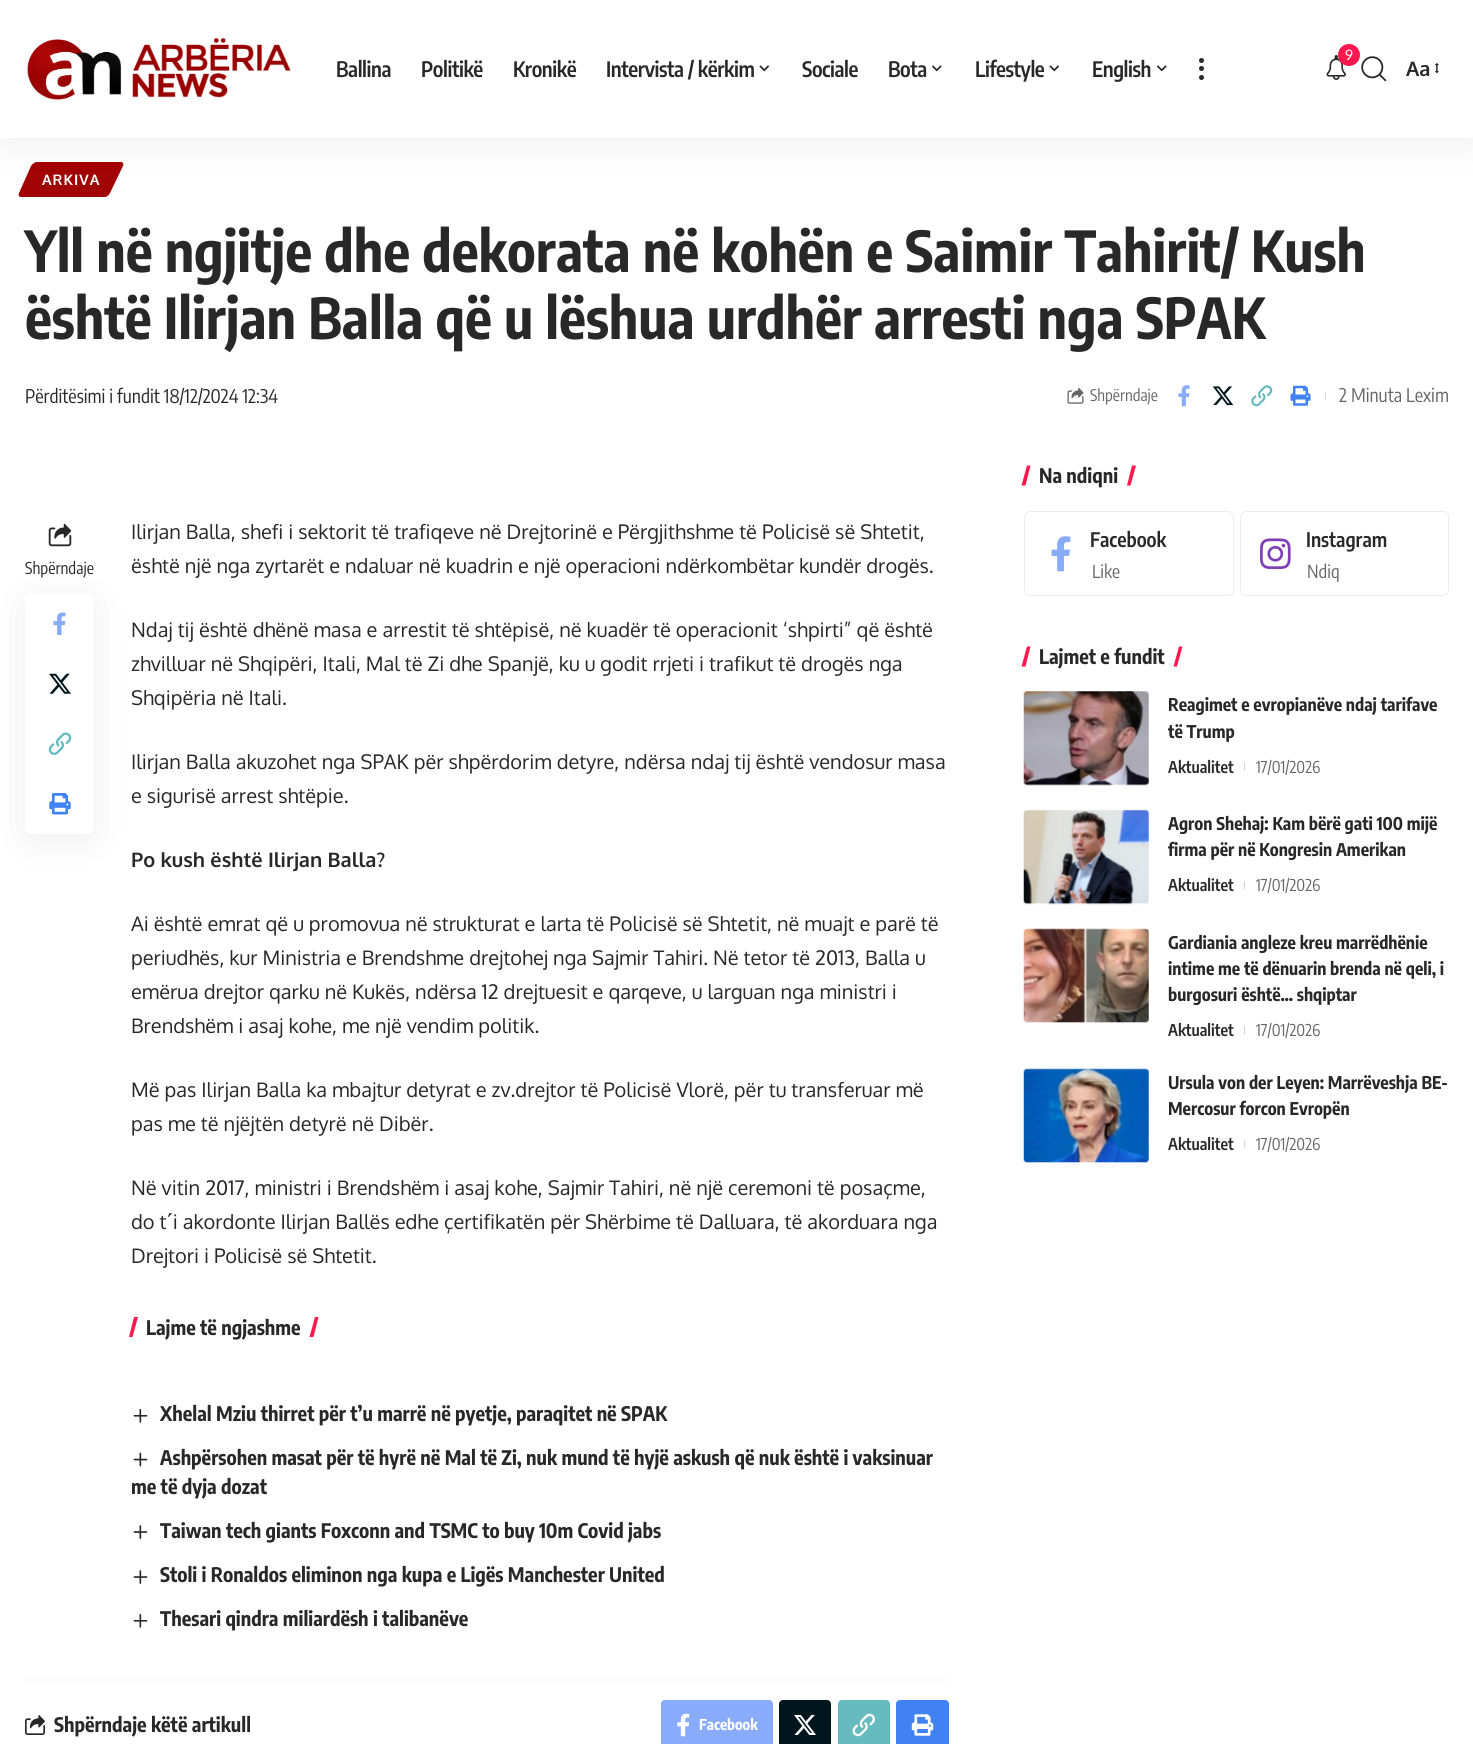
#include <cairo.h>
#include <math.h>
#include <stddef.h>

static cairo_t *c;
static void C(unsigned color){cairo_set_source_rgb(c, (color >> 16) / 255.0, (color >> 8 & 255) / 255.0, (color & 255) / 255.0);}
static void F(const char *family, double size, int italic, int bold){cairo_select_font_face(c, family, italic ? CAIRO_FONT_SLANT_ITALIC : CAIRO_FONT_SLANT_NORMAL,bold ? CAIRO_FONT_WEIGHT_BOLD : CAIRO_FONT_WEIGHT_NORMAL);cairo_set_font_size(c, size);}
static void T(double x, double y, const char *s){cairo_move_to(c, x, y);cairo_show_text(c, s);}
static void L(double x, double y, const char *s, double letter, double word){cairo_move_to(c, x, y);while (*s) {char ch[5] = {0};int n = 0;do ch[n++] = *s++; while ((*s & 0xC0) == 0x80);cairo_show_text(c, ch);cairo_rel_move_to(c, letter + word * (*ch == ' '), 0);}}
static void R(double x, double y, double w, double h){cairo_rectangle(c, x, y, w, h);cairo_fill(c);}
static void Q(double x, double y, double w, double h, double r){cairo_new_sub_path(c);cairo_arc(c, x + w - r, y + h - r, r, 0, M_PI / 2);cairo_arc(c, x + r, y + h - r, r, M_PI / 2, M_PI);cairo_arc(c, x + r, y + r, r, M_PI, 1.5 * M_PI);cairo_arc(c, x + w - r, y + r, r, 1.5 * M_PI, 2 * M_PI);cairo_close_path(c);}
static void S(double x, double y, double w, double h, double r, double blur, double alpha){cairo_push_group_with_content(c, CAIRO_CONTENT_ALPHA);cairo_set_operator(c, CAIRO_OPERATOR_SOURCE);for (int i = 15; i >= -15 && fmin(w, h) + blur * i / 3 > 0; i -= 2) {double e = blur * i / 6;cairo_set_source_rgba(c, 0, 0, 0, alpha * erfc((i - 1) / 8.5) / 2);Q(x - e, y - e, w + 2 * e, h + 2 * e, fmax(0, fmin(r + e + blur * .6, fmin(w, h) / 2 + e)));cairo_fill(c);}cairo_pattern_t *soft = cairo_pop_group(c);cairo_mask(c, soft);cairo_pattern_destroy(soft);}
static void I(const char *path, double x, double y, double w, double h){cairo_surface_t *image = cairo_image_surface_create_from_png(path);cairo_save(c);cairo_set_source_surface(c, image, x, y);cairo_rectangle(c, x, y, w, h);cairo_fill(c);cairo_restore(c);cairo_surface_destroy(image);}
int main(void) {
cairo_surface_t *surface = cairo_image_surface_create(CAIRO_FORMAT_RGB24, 1473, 1744);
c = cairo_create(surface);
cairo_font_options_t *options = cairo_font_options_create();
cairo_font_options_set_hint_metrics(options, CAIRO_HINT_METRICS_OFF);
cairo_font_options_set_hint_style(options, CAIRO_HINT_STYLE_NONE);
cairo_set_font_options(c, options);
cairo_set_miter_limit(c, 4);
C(0xffffff);
cairo_paint(c);
C(0xa20303);
cairo_new_path(c);
cairo_move_to(c,37,162);
cairo_line_to(c,121,162);
cairo_curve_to(c,123,162,124,164,123,166);
cairo_line_to(c,110,193);
cairo_curve_to(c,109,195,107,197,105,197);
cairo_line_to(c,21,197);
cairo_curve_to(c,19,197,18,195,19,193);
cairo_line_to(c,31,166);
cairo_curve_to(c,32,164,35,162,37,162);
cairo_close_path(c);
cairo_fill(c);
C(0x000000);
S(0,5,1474,138,0,19,.07);
C(0xffffff);
R(0,0,1473,138);
I("1.png",27,38,264,62);
F("Encode Sans Condensed SemiBold",21.25,0,0);
C(0x282828);
L(336,77,"Ballina",-.4,0);
L(421,77,"Politikë",-.4,0);
L(513,77,"Kronikë",-.4,0);
L(606,77,"Intervista / kërkim",-.4,0);
I("2.png",759,65,11,7);
L(802,77,"Sociale",-.4,0);
L(888,77,"Bota",-.4,0);
I("3.png",931,65,11,7);
L(975,77,"Lifestyle",-.4,0);
I("2.png",1049,65,11,7);
L(1092,77,"English",-.4,0);
I("3.png",1156,65,11,7);
cairo_arc(c,1201.5,60.5,2.5,0,2 * M_PI);
cairo_fill(c);
cairo_arc(c,1201.5,68.5,2.5,0,2 * M_PI);
cairo_fill(c);
cairo_arc(c,1201.5,77.5,2.5,0,2 * M_PI);
cairo_fill(c);
I("4.png",1326,55,20,25);
C(0xff184e);
cairo_arc(c,1349,55,11,0,2 * M_PI);
cairo_fill(c);
F("Oxygen",14,0,0);
C(0xffffff);
T(1345,60,"9");
I("5.png",1361,56,26,26);
F("Oxygen",20,0,1);
C(0x282828);
T(1406,76,"Aa");
I("6.png",1435,63,4,11);
F("Oxygen",14.5,0,1);
C(0xffffff);
L(42,185,"ARKIVA",1,0);
F("Encode Sans Condensed",56.25,0,1);
C(0x282828);
T(25,272,"Yll në ngjitje dhe dekorata në kohën e Saimir Tahirit/ Kush");
T(25,339,"është Ilirjan Balla që u lëshua urdhër arresti nga SPAK");
F("Encode Sans Condensed",18.75,0,0);
T(25,403,"Përditësimi i fundit 18/12/2024 12:34");
I("7.png",1067,387,17,17);
F("Encode Sans Condensed",16,0,0);
C(0x666666);
T(1090,401,"Shpërndaje");
I("8.png",1178,385,12,22);
I("9.png",1212,386,22,20);
I("10.png",1251,385,22,22);
I("11.png",1290,385,21,21);
C(0xd9d9d9);
R(1325,393,1,7);
F("Encode Sans Condensed",18.75,0,0);
C(0x666666);
T(1339,402,"2 Minuta Lexim");
C(0x000000);
S(25,600,69,240,6,19,.07);
C(0xffffff);
Q(25,594,69,240,6);
cairo_fill(c);
I("12.png",53,612,13,23);
I("13.png",49,673,22,21);
I("14.png",48,732,24,23);
I("15.png",49,793,22,22);
I("16.png",48,523,24,24);
F("Encode Sans Condensed",16.25,0,0);
C(0x282828);
T(25,574,"Shpërndaje");
F("Oxygen",20,0,0);
T(131,539,"Ilirjan Balla, shefi i sektorit të trafiqeve në Drejtorinë e Përgjithshme të Policisë së Shtetit,");
T(131,573,"është një nga zyrtarët e ndaluar në kuadrin e një operacioni ndërkombëtar kundër drogës.");
T(131,637,"Ndaj tij është dhënë masa e arrestit të shtëpisë, në kuadër të operacionit ‘shpirti” që është");
T(131,671,"zhvilluar në Shqipëri, Itali, Mal të Zi dhe Spanjë, ku u godit rrjeti i trafikut të drogës nga");
T(131,705,"Shqipëria në Itali.");
T(131,769,"Ilirjan Balla akuzohet nga SPAK për shpërdorim detyre, ndërsa ndaj tij është vendosur masa");
T(131,803,"e sigurisë arrest shtëpie.");
F("Oxygen",20,0,1);
T(131,867,"Po kush është Ilirjan Balla?");
F("Oxygen",20,0,0);
T(131,931,"Ai është emrat që u promovua në strukturat e larta të Policisë së Shtetit, në muajt e parë të");
T(131,965,"periudhës, kur Ministria e Brendshme drejtohej nga Sajmir Tahiri. Në tetor të 2013, Balla u");
T(131,999,"emërua drejtor qarku në Kukës, ndërsa 12 drejtuesit e qarqeve, u larguan nga ministri i");
T(131,1033,"Brendshëm i asaj kohe, me një vendim politik.");
T(131,1097,"Më pas Ilirjan Balla ka mbajtur detyrat e zv.drejtor të Policisë Vlorë, për tu transferuar më");
T(131,1131,"pas me të njëjtën detyrë në Dibër.");
T(131,1195,"Në vitin 2017, ministri i Brendshëm i asaj kohe, Sajmir Tahiri, në një ceremoni të posaçme,");
T(131,1229,"do t´i akordonte Ilirjan Ballës edhe çertifikatën për Shërbime të Dalluara, të akorduara nga");
T(131,1263,"Drejtori i Policisë së Shtetit.");
C(0xff184e);
cairo_new_path(c);
cairo_move_to(c,315,1317);
cairo_line_to(c,318.5,1317);
cairo_line_to(c,313.5,1337);
cairo_line_to(c,309.5,1337);
cairo_close_path(c);
cairo_fill(c);
cairo_new_path(c);
cairo_move_to(c,134,1317);
cairo_line_to(c,138,1317);
cairo_line_to(c,132.5,1337);
cairo_line_to(c,129,1337);
cairo_close_path(c);
cairo_fill(c);
F("Encode Sans Condensed",20,0,1);
C(0x282828);
T(146,1335,"Lajme të ngjashme");
I("17.png",133,1408,15,15);
T(160,1421,"Xhelal Mziu thirret për t’u marrë në pyetje, paraqitet në SPAK");
I("18.png",133,1452,15,15);
T(160,1465,"Ashpërsohen masat për të hyrë në Mal të Zi, nuk mund të hyjë askush që nuk është i vaksinuar");
T(131,1494,"me të dyja dozat");
I("19.png",133,1525,15,14);
T(160,1538,"Taiwan tech giants Foxconn and TSMC to buy 10m Covid jabs");
I("19.png",133,1570,15,14);
T(160,1582,"Stoli i Ronaldos eliminon nga kupa e Ligës Manchester United");
I("17.png",133,1613,15,15);
T(160,1626,"Thesari qindra miliardësh i talibanëve");
C(0xfbfbfb);
R(25,1678,924,4);
I("20.png",25,1715,20,20);
C(0x282828);
T(54,1732,"Shpërndaje këtë artikull");
C(0x89abfc);
Q(661,1700,112,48,4);
cairo_fill(c);
I("21.png",677,1713,13,24);
F("Encode Sans Condensed",15,0,1);
C(0xffffff);
T(699,1730,"Facebook");
C(0x00151c);
Q(779,1700,52,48,4);
cairo_fill(c);
I("22.png",794,1715,22,20);
C(0x66bbbf);
Q(838,1700,52,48,4);
cairo_fill(c);
I("23.png",852,1713,23,24);
C(0x4082f1);
Q(896,1700,53,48,4);
cairo_fill(c);
I("24.png",911,1714,23,22);
C(0xff184e);
cairo_new_path(c);
cairo_move_to(c,1132,465.5);
cairo_line_to(c,1136,465.5);
cairo_line_to(c,1130.5,485.5);
cairo_line_to(c,1127,485.5);
cairo_close_path(c);
cairo_fill(c);
cairo_new_path(c);
cairo_move_to(c,1027,465.5);
cairo_line_to(c,1030.5,465.5);
cairo_line_to(c,1025.5,485.5);
cairo_line_to(c,1021.5,485.5);
cairo_close_path(c);
cairo_fill(c);
F("Encode Sans Condensed",20,0,1);
C(0x282828);
T(1039,483,"Na ndiqni");
Q(1024.5,511.5,209,84,5.5);
C(0xededed);
cairo_set_line_width(c,1);
cairo_stroke(c);
I("25.png",1051,536,20,36);
F("Encode Sans Condensed SemiBold",20,0,0);
C(0x282828);
T(1090,547,"Facebook");
F("Encode Sans Condensed",18,0,0);
C(0x666666);
T(1092,578,"Like");
Q(1240.5,511.5,208,84,5.5);
C(0xededed);
cairo_stroke(c);
I("26.png",1260,538,31,32);
F("Encode Sans Condensed SemiBold",20,0,0);
C(0x282828);
T(1306,547,"Instagram");
F("Encode Sans Condensed",18,0,0);
C(0x666666);
T(1307,578,"Ndiq");
C(0xff184e);
cairo_new_path(c);
cairo_move_to(c,1179,646.5);
cairo_line_to(c,1182.5,646.5);
cairo_line_to(c,1177,666.5);
cairo_line_to(c,1173.5,666.5);
cairo_close_path(c);
cairo_fill(c);
cairo_new_path(c);
cairo_move_to(c,1027,646.5);
cairo_line_to(c,1030.5,646.5);
cairo_line_to(c,1025.5,666.5);
cairo_line_to(c,1021.5,666.5);
cairo_close_path(c);
cairo_fill(c);
F("Encode Sans Condensed",20,0,1);
C(0x282828);
T(1039,664,"Lajmet e fundit");
I("27.png",1023,691,126,95);
F("Encode Sans Condensed",17.5,0,1);
T(1168,711,"Reagimet e evropianëve ndaj tarifave");
T(1168,738,"të Trump");
F("Encode Sans Condensed SemiBold",16.25,0,0);
T(1168,773,"Aktualitet");
C(0xd1d1d1);
R(1244,763,1,7);
F("Encode Sans Condensed",16.25,0,0);
C(0x666666);
T(1256,773,"17/01/2026");
I("28.png",1023,809,126,96);
F("Encode Sans Condensed",17.5,0,1);
C(0x282828);
T(1168,830,"Agron Shehaj: Kam bërë gati 100 mijë");
T(1168,856,"firma për në Kongresin Amerikan");
F("Encode Sans Condensed SemiBold",16.25,0,0);
T(1168,891,"Aktualitet");
C(0xd1d1d1);
R(1244,881,1,8);
F("Encode Sans Condensed",16.25,0,0);
C(0x666666);
T(1256,891,"17/01/2026");
I("29.png",1023,928,126,95);
F("Encode Sans Condensed",17.5,0,1);
C(0x282828);
T(1168,949,"Gardiania angleze kreu marrëdhënie");
T(1168,975,"intime me të dënuarin brenda në qeli, i");
T(1168,1001,"burgosuri është… shqiptar");
F("Encode Sans Condensed SemiBold",16.25,0,0);
T(1168,1036,"Aktualitet");
C(0xd1d1d1);
R(1244,1026,1,8);
F("Encode Sans Condensed",16.25,0,0);
C(0x666666);
T(1256,1036,"17/01/2026");
I("30.png",1023,1068,126,95);
F("Encode Sans Condensed",17.5,0,1);
C(0x282828);
T(1168,1089,"Ursula von der Leyen: Marrëveshja BE-");
T(1168,1115,"Mercosur forcon Evropën");
F("Encode Sans Condensed SemiBold",16.25,0,0);
T(1168,1150,"Aktualitet");
C(0xd1d1d1);
R(1244,1140,1,8);
F("Encode Sans Condensed",16.25,0,0);
C(0x666666);
T(1256,1150,"17/01/2026");
cairo_surface_write_to_png(surface, "o.png");
cairo_font_options_destroy(options);
cairo_destroy(c);
cairo_surface_destroy(surface);
return 0;
}
